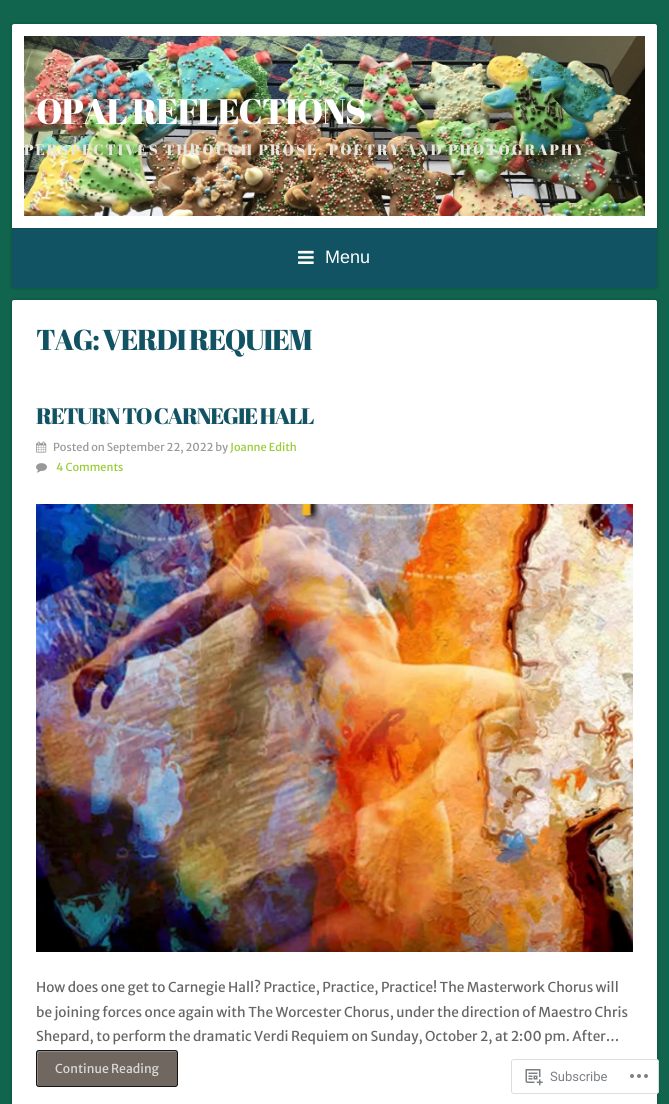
#include <cairo.h>
#include <math.h>
#include <stddef.h>

static cairo_t *c;
static void C(unsigned color){cairo_set_source_rgb(c, (color >> 16) / 255.0, (color >> 8 & 255) / 255.0, (color & 255) / 255.0);}
static void F(const char *family, double size, int italic, int bold){cairo_select_font_face(c, family, italic ? CAIRO_FONT_SLANT_ITALIC : CAIRO_FONT_SLANT_NORMAL,bold ? CAIRO_FONT_WEIGHT_BOLD : CAIRO_FONT_WEIGHT_NORMAL);cairo_set_font_size(c, size);}
static void T(double x, double y, const char *s){cairo_move_to(c, x, y);cairo_show_text(c, s);}
static void L(double x, double y, const char *s, double letter, double word){cairo_move_to(c, x, y);while (*s) {char ch[5] = {0};int n = 0;do ch[n++] = *s++; while ((*s & 0xC0) == 0x80);cairo_show_text(c, ch);cairo_rel_move_to(c, letter + word * (*ch == ' '), 0);}}
static void R(double x, double y, double w, double h){cairo_rectangle(c, x, y, w, h);cairo_fill(c);}
static void Q(double x, double y, double w, double h, double r){cairo_new_sub_path(c);cairo_arc(c, x + w - r, y + h - r, r, 0, M_PI / 2);cairo_arc(c, x + r, y + h - r, r, M_PI / 2, M_PI);cairo_arc(c, x + r, y + r, r, M_PI, 1.5 * M_PI);cairo_arc(c, x + w - r, y + r, r, 1.5 * M_PI, 2 * M_PI);cairo_close_path(c);}
static void S(double x, double y, double w, double h, double r, double blur, double alpha){cairo_push_group_with_content(c, CAIRO_CONTENT_ALPHA);cairo_set_operator(c, CAIRO_OPERATOR_SOURCE);for (int i = 15; i >= -15 && fmin(w, h) + blur * i / 3 > 0; i -= 2) {double e = blur * i / 6;cairo_set_source_rgba(c, 0, 0, 0, alpha * erfc((i - 1) / 8.5) / 2);Q(x - e, y - e, w + 2 * e, h + 2 * e, fmax(0, fmin(r + e + blur * .6, fmin(w, h) / 2 + e)));cairo_fill(c);}cairo_pattern_t *soft = cairo_pop_group(c);cairo_mask(c, soft);cairo_pattern_destroy(soft);}
static void I(const char *path, double x, double y, double w, double h){cairo_surface_t *image = cairo_image_surface_create_from_png(path);cairo_save(c);cairo_set_source_surface(c, image, x, y);cairo_rectangle(c, x, y, w, h);cairo_fill(c);cairo_restore(c);cairo_surface_destroy(image);}
int main(void) {
cairo_surface_t *surface = cairo_image_surface_create(CAIRO_FORMAT_RGB24, 669, 1104);
c = cairo_create(surface);
cairo_font_options_t *options = cairo_font_options_create();
cairo_font_options_set_hint_metrics(options, CAIRO_HINT_METRICS_OFF);
cairo_font_options_set_hint_style(options, CAIRO_HINT_STYLE_NONE);
cairo_set_font_options(c, options);
cairo_set_miter_limit(c, 4);
C(0x11644d);
cairo_paint(c);
C(0x000000);
S(12,24,645,264,2,2,.24);
C(0xffffff);
cairo_new_path(c);
cairo_move_to(c,14,24);
cairo_line_to(c,655,24);
cairo_curve_to(c,656,24,657,25,657,26);
cairo_line_to(c,657,228);
cairo_line_to(c,12,228);
cairo_line_to(c,12,26);
cairo_curve_to(c,12,25,13,24,14,24);
cairo_close_path(c);
cairo_fill(c);
I("1.png",24,36,621,180);
F("Abril Fatface",35.4,0,0);
L(36,124,"OPAL REFLECTIONS",-1,0);
F("Abril Fatface",14.95,0,0);
C(0xe7e7df);
L(24,155,"PERSPECTIVES THROUGH PROSE, POETRY AND PHOTOGRAPHY",2,0);
C(0x115363);
cairo_new_path(c);
cairo_move_to(c,12,228);
cairo_line_to(c,657,228);
cairo_line_to(c,657,286);
cairo_curve_to(c,657,287,656,288,655,288);
cairo_line_to(c,14,288);
cairo_curve_to(c,13,288,12,287,12,286);
cairo_close_path(c);
cairo_fill(c);
C(0x0f4b59);
R(12,228,645,1);
I("2.png",298,250,16,14);
F("Liberation Sans",18,0,0);
C(0xffffff);
T(325,263,"Menu");
C(0x000000);
S(12,300,645,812,2,2,.24);
C(0xffffff);
Q(12,300,645,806,2);
cairo_fill(c);
F("Abril Fatface",28.75,0,0);
C(0x115363);
L(36,350,"TAG: VERDI REQUIEM",-1.4,0);
F("Abril Fatface",22.4,0,0);
L(36,424,"RETURN TO CARNEGIE HALL",-1.4,0);
I("3.png",36,441,11,12);
F("Merriweather Sans",11,0,0);
C(0x999999);
T(53,451,"Posted on September 22, 2022 by");
C(0x99cc33);
T(230,451,"Joanne Edith");
I("4.png",36,463,11,10);
T(56,471,"4 Comments");
I("5.png",36,504,597,448);
F("Merriweather Sans",13.6,0,0);
C(0x666666);
T(36,992,"How does one get to Carnegie Hall? Practice, Practice, Practice! The Masterwork Chorus will");
T(36,1017,"be joining forces once again with The Worcester Chorus, under the direction of Maestro Chris");
T(36,1041,"Shepard, to perform the dramatic Verdi Requiem on Sunday, October 2, at 2:00 pm. After…");
C(0x706760);
Q(36,1050,142,37,3);
cairo_fill(c);
C(0x928b86);
cairo_new_path(c);
cairo_move_to(c,40,1052);
cairo_line_to(c,177,1052);
cairo_curve_to(c,177,1052,176,1051,175,1051);
cairo_line_to(c,39,1051);
cairo_curve_to(c,38,1051,37,1052,37,1053);
cairo_line_to(c,37,1084);
cairo_curve_to(c,37,1085,38,1086,38,1086);
cairo_line_to(c,38,1059);
cairo_curve_to(c,38,1058,37,1052,40,1052);
cairo_close_path(c);
cairo_fill(c);
Q(36.5,1050.5,141,36,2.5);
cairo_set_source_rgba(c,0,0,0,0.8);
cairo_set_line_width(c,1);
cairo_stroke(c);
F("Merriweather Sans",12.25,0,0);
C(0xdbd9d7);
T(55,1073,"Continue Reading");
cairo_set_source_rgba(c,1,1,1,0.98);
Q(511,1059,148,35,3);
cairo_fill(c);
Q(511.5,1059.5,147,34,2.5);
cairo_set_source_rgba(c,0.863,0.863,0.871,0.98);
cairo_stroke(c);
I("6.png",525,1069,18,17);
F("Roboto",13,0,0);
C(0x7b7f85);
T(550,1081,"Subscribe");
I("7.png",630,1074,18,4);
cairo_surface_write_to_png(surface, "o.png");
cairo_font_options_destroy(options);
cairo_destroy(c);
cairo_surface_destroy(surface);
return 0;
}
